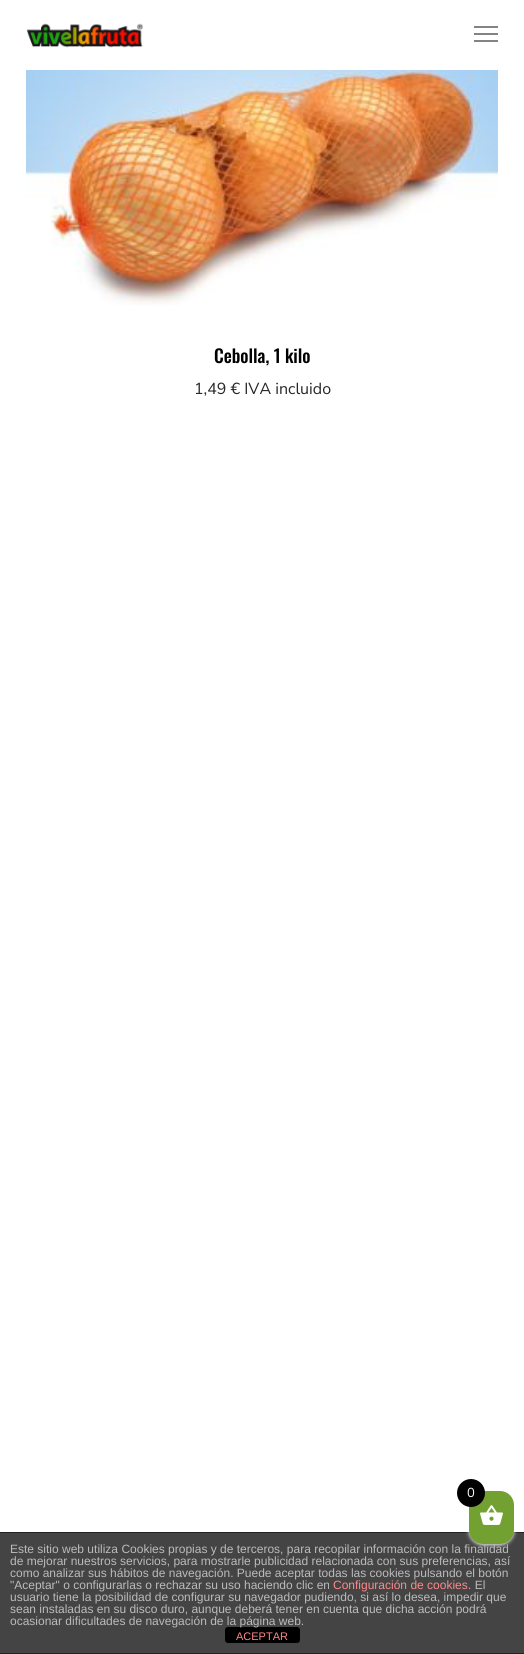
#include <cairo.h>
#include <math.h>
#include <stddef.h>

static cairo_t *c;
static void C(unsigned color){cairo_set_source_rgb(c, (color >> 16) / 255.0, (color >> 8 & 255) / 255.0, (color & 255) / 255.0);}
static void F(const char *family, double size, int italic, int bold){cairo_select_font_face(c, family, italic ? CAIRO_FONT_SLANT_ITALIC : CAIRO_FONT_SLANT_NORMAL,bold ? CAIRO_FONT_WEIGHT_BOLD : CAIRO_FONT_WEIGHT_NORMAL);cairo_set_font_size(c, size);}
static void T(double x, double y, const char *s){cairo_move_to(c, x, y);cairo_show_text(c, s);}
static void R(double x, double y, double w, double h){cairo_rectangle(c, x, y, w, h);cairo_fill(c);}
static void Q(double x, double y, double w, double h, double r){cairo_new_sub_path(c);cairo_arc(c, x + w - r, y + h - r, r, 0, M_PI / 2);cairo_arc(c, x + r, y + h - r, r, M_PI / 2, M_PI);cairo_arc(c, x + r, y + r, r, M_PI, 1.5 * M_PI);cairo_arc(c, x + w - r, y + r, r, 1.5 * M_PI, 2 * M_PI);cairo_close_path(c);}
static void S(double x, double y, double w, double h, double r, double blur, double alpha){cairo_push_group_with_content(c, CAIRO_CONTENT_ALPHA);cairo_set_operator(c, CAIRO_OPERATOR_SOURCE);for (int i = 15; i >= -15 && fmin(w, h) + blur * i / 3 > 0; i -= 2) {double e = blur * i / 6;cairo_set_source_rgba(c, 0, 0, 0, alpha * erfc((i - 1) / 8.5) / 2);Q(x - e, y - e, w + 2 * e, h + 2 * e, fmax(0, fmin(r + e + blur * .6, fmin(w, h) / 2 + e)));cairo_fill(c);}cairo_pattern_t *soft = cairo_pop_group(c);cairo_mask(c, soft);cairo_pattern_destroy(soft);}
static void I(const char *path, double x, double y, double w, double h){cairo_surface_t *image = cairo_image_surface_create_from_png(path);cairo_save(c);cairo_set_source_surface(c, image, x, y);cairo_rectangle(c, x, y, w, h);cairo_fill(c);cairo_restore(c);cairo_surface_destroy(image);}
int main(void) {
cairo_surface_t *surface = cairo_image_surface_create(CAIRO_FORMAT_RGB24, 524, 1654);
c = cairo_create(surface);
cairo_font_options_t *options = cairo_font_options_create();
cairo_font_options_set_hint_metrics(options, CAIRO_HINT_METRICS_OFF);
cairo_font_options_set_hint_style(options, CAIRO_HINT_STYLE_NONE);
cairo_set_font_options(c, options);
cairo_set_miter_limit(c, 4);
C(0xffffff);
cairo_paint(c);
I("1.png",26,23,117,25);
C(0x838383);
R(474,26,24,2);
R(474,33,24,2);
R(474,40,24,2);
I("2.png",26,70,472,236);
F("Oswald Medium",18,0,0);
C(0x000000);
T(214,363,"Cebolla, 1 kilo");
F("Nunito Sans",16,0,0);
C(0x272727);
T(194,394,"1,49 € IVA incluido");
C(0x444444);
R(0,1533,524,120);
C(0x222222);
R(0,1532,524,1);
C(0xffffff);
S(469,1492,45,53,14,2,1);
C(0x72a031);
Q(469,1491,45,53,14);
cairo_fill(c);
C(0x000000);
cairo_arc(c,471,1493,14,0,2 * M_PI);
cairo_fill(c);
F("Nunito Sans",13,0,0);
C(0xffffff);
T(467,1497,"0");
I("3.png",480,1505,23,20);
C(0x222222);
R(0,1653,524,1);
F("Liberation Sans",12,0,0);
C(0xbbbbbb);
T(10,1553,"Este sitio web utiliza Cookies propias y de terceros, para recopilar información con la finalidad");
T(10,1565,"de mejorar nuestros servicios, para mostrarle publicidad relacionada con sus preferencias, así");
T(10,1577,"como analizar sus hábitos de navegación. Puede aceptar todas las cookies pulsando el botón");
T(10,1589,"\"Aceptar\" o configurarlas o rechazar su uso haciendo clic en");
C(0xff8888);
T(333,1589,"Configuración de cookies");
C(0xbbbbbb);
T(468,1589,". El");
T(10,1601,"usuario tiene la posibilidad de configurar su navegador pudiendo, si así lo desea, impedir que");
T(10,1613,"sean instaladas en su disco duro, aunque deberá tener en cuenta que dicha acción podrá");
C(0x000000);
Q(225,1627,75,16,3);
cairo_fill(c);
C(0xbbbbbb);
T(10,1625,"ocasionar dificultades de navegación de la página web.");
F("Liberation Sans",11,0,0);
C(0xff8888);
T(236,1640,"ACEPTAR");
cairo_surface_write_to_png(surface, "o.png");
cairo_font_options_destroy(options);
cairo_destroy(c);
cairo_surface_destroy(surface);
return 0;
}
